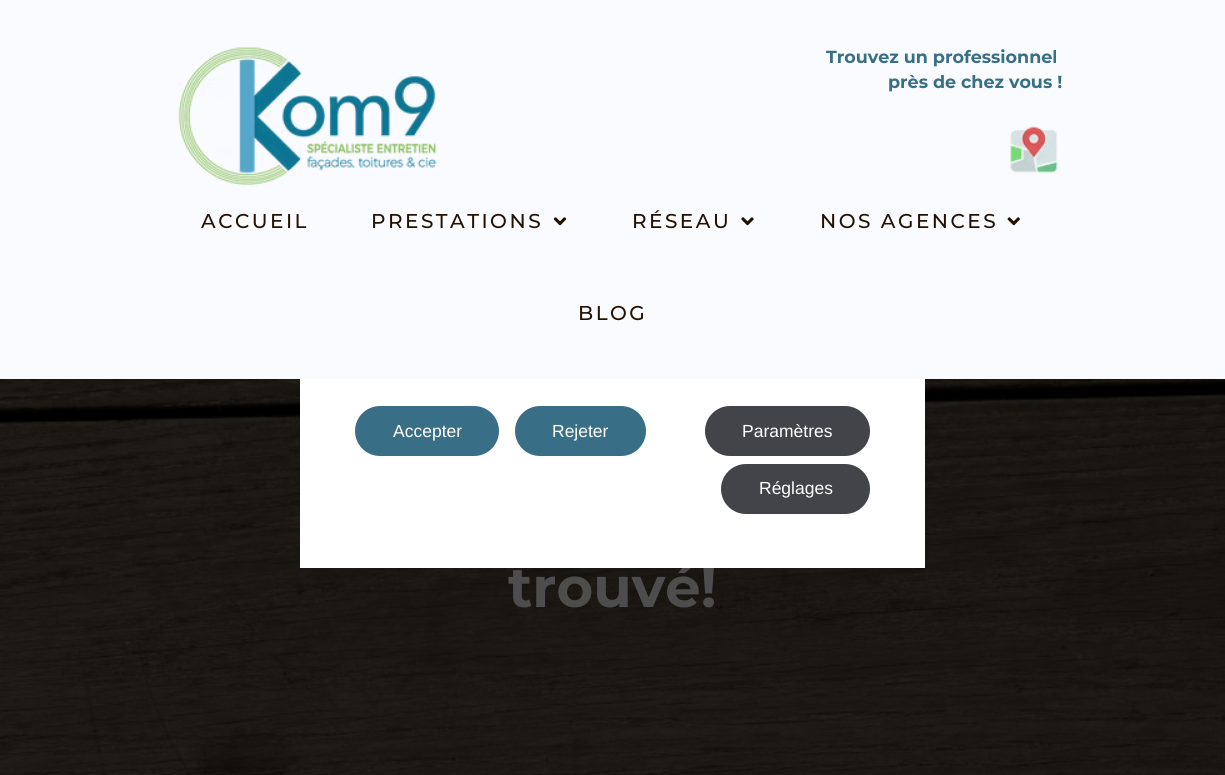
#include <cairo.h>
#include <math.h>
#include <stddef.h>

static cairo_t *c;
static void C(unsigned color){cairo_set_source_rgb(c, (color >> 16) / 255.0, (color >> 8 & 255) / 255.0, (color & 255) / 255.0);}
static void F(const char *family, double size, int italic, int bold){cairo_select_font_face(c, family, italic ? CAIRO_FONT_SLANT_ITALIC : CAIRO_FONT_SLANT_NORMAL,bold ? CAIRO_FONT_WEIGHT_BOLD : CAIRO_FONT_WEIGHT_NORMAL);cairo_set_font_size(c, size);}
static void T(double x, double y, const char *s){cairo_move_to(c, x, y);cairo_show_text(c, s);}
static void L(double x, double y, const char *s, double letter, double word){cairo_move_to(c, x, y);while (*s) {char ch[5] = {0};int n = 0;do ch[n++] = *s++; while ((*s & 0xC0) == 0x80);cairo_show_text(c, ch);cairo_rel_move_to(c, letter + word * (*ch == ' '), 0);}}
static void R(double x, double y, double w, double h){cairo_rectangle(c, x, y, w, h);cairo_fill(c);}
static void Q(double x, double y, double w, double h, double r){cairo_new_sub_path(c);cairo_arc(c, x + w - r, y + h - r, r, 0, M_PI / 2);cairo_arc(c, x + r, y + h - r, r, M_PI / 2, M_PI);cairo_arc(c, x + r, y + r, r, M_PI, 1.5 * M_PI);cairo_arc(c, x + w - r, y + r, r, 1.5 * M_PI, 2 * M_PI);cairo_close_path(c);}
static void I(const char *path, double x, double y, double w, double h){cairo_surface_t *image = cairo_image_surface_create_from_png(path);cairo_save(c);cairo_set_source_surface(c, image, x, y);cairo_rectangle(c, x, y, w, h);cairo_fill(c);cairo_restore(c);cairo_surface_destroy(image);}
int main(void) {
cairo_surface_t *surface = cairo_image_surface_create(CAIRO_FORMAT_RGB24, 1225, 775);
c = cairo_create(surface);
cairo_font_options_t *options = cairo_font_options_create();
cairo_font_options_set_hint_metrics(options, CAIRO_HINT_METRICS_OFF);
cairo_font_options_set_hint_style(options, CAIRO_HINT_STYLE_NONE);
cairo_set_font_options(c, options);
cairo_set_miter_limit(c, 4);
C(0xffffff);
cairo_paint(c);
C(0xfafbff);
R(0,0,1225,379);
I("1.png",178,47,259,139);
F("Montserrat",17.5,0,1);
C(0x396f86);
T(826,63,"Trouvez un professionnel");
T(888,88,"près de chez vous !");
I("2.png",1009,126,49,47);
F("Montserrat Medium",20,0,0);
C(0x221201);
L(201,228,"ACCUEIL",2.5,0);
L(371,228,"PRESTATIONS",2.5,0);
I("3.png",553,217,14,9);
L(632,228,"RÉSEAU",2.5,0);
I("4.png",741,217,13,9);
L(820,228,"NOS AGENCES",2.5,0);
I("5.png",1007,217,13,9);
L(578,320,"BLOG",2.5,0);
I("6.png",0,379,1225,396);
F("Montserrat",56,0,1);
C(0x4d4d4d);
T(508,607,"trouvé!");
C(0xffffff);
R(300,379,625,189);
C(0x396f86);
Q(355,406,144,50,25);
cairo_fill(c);
F("Liberation Sans",17.5,0,0);
C(0xffffff);
T(393,437,"Accepter");
C(0x396f86);
Q(515,406,131,50,25);
cairo_fill(c);
C(0xffffff);
T(552,437,"Rejeter");
C(0x424449);
Q(705,406,165,50,25);
cairo_fill(c);
C(0xffffff);
T(742,437,"Paramètres");
C(0x424449);
Q(721,464,149,50,25);
cairo_fill(c);
C(0xffffff);
T(759,494,"Réglages");
cairo_surface_write_to_png(surface, "o.png");
cairo_font_options_destroy(options);
cairo_destroy(c);
cairo_surface_destroy(surface);
return 0;
}
